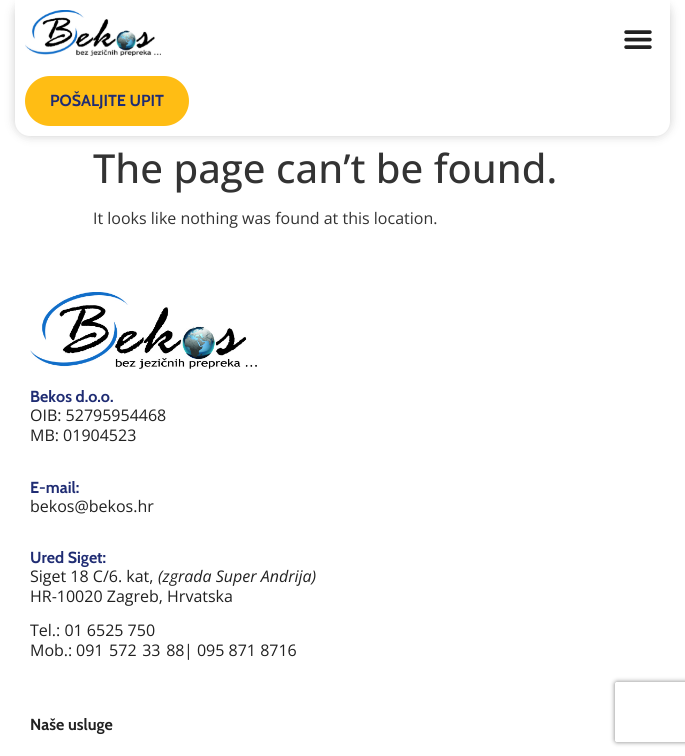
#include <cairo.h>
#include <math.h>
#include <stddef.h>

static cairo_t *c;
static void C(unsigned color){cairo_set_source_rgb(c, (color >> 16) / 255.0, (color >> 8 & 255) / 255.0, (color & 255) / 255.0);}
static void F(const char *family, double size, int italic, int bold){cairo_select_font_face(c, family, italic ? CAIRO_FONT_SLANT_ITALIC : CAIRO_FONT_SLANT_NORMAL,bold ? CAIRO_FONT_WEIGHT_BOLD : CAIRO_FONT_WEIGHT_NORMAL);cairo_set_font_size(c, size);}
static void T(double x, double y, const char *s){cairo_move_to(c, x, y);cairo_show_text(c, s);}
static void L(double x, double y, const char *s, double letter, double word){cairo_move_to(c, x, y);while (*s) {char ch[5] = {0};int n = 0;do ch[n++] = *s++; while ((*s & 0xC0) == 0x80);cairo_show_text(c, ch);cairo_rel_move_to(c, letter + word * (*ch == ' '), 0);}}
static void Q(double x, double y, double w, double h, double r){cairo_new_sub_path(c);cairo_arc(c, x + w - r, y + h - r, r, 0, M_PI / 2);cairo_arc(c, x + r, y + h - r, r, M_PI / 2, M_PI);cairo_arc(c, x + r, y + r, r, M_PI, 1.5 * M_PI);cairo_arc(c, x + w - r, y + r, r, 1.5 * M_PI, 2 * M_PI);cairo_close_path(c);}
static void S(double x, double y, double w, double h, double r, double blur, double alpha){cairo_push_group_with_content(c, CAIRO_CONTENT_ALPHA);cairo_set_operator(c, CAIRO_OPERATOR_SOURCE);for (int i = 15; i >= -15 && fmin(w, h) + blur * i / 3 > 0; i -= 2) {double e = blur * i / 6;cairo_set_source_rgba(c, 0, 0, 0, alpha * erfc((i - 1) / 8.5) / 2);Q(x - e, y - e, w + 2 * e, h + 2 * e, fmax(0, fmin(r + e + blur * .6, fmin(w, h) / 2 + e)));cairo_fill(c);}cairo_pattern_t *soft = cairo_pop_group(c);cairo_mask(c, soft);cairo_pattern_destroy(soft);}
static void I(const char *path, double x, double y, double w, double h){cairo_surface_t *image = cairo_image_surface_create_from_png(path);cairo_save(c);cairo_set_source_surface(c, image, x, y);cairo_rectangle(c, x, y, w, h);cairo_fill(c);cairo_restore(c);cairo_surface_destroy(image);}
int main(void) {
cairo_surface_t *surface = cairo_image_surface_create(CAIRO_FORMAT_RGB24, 685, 756);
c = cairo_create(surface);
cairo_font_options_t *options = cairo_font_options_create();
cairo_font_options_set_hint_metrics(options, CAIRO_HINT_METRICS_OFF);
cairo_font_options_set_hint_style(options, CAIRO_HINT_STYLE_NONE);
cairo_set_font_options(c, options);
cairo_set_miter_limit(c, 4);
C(0xffffff);
cairo_paint(c);
C(0x000000);
S(15,0,655,136,15,5,.2);
C(0xffffff);
cairo_new_path(c);
cairo_move_to(c,15,0);
cairo_line_to(c,670,0);
cairo_line_to(c,670,121);
cairo_curve_to(c,670,129.5,663.5,136,655,136);
cairo_line_to(c,30,136);
cairo_curve_to(c,21.5,136,15,129.5,15,121);
cairo_close_path(c);
cairo_fill(c);
I("1.png",25,10,136,46);
I("2.png",624,30,28,19);
C(0xffbd14);
Q(25,76,164,50,25);
cairo_fill(c);
F("Cabin",16,0,1);
C(0x1f2c73);
T(50,106,"POŠALJITE UPIT");
F("Open Sans Medium",40,0,0);
C(0x333333);
T(93,183,"The page can’t be found.");
F("Open Sans",16,0,0);
T(93,224,"It looks like nothing was found at this location.");
I("3.png",30,292,227,77);
F("Cabin",16,0,1);
C(0x1f2c73);
T(30,402,"Bekos d.o.o.");
F("Open Sans",16,0,0);
C(0x212121);
T(30,421,"OIB: 52795954468");
T(30,441,"MB: 01904523");
F("Cabin",16,0,1);
C(0x1f2c73);
T(30,493,"E-mail:");
F("Open Sans",16,0,0);
C(0x212121);
T(30,512,"bekos@bekos.hr");
F("Cabin",16,0,1);
C(0x1f2c73);
T(30,563,"Ured Siget:");
F("Open Sans",16,0,0);
C(0x212121);
T(30,582,"Siget 18 C/6. kat,");
F("Open Sans",16,1,0);
T(158,582,"(zgrada Super Andrija)");
F("Open Sans",16,0,0);
T(30,602,"HR-10020 Zagreb, Hrvatska");
T(30,636,"Tel.: 01 6525 750");
T(30,656,"Mob.:");
L(76,656,"091 572 33 88",0,1.5);
T(184,656,"| 095 871 8716");
F("Cabin",16,0,1);
T(30,730,"Naše usluge");
cairo_save(c);
cairo_set_fill_rule(c,CAIRO_FILL_RULE_EVEN_ODD);
cairo_new_path(c);
cairo_move_to(c,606,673);
cairo_line_to(c,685,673);
cairo_line_to(c,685,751);
cairo_line_to(c,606,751);
cairo_close_path(c);
cairo_move_to(c,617,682);
cairo_line_to(c,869,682);
cairo_curve_to(c,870,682,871,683,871,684);
cairo_line_to(c,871,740);
cairo_curve_to(c,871,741,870,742,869,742);
cairo_line_to(c,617,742);
cairo_curve_to(c,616,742,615,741,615,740);
cairo_line_to(c,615,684);
cairo_curve_to(c,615,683,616,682,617,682);
cairo_close_path(c);
cairo_clip(c);
C(0x808080);
S(615,682,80,60,2,2.5,1);
cairo_restore(c);
cairo_surface_write_to_png(surface, "o.png");
cairo_font_options_destroy(options);
cairo_destroy(c);
cairo_surface_destroy(surface);
return 0;
}
